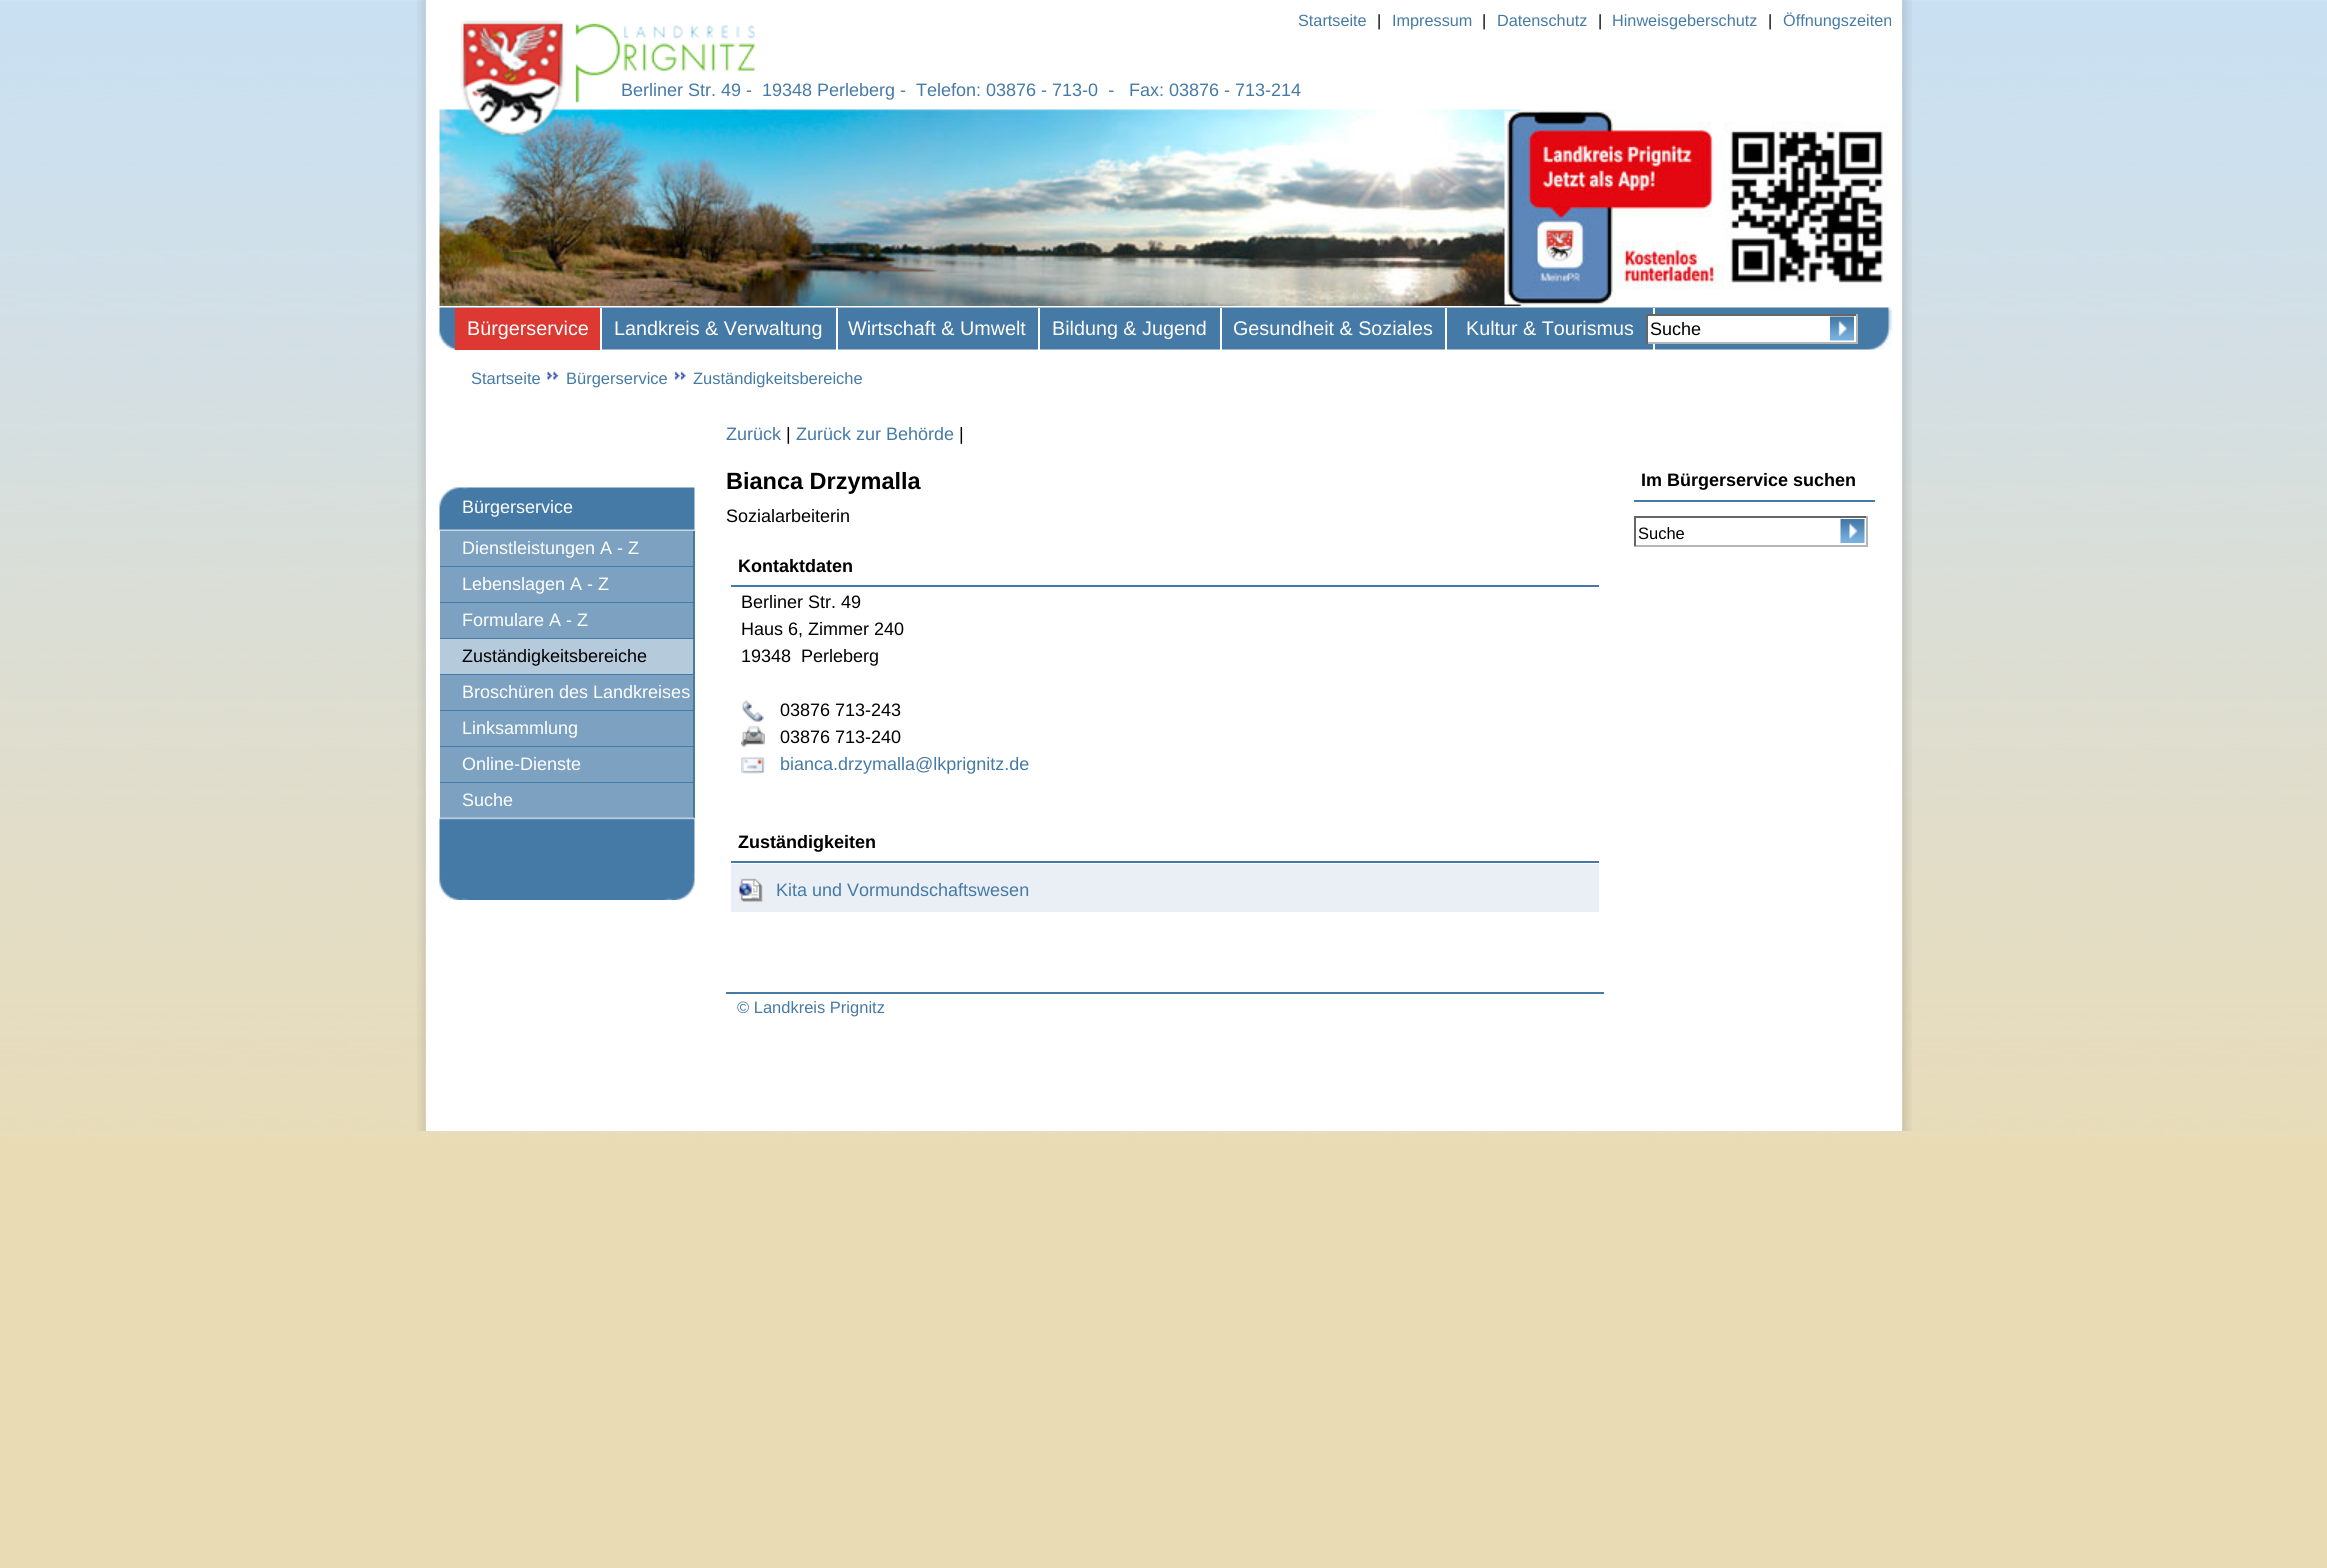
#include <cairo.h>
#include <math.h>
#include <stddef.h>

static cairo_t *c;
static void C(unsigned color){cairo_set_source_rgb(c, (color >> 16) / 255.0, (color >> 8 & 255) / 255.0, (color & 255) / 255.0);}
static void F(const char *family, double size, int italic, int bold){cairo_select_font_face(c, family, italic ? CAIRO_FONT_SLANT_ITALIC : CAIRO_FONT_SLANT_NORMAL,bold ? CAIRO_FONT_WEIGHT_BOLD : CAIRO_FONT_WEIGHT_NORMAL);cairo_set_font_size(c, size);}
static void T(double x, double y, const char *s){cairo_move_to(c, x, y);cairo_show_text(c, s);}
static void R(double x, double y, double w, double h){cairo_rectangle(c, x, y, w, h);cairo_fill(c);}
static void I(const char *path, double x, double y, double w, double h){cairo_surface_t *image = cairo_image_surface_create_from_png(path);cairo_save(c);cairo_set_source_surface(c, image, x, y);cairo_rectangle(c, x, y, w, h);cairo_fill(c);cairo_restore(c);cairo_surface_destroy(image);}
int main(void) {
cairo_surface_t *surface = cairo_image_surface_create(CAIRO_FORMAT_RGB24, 2327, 1568);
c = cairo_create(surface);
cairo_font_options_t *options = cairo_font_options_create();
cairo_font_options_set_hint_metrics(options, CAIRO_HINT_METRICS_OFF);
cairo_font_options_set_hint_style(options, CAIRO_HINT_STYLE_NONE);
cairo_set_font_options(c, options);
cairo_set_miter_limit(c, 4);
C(0xe9dcb5);
cairo_paint(c);
I("1.png",0,0,2327,1137);
I("2.png",417,349,1495,782);
I("3.png",417,0,1495,350);
C(0xffffff);
R(426,0,1476,350);
F("Liberation Sans",18,0,0);
C(0x457aa6);
T(621,96,"Berliner Str. 49 -");
I("5.png",439,109,1449,197);
I("4.png",460,20,295,117);
T(762,96,"19348 Perleberg -");
T(916,96,"Telefon: 03876 - 713-0  -");
T(1129,96,"Fax: 03876 - 713-214");
F("Liberation Sans",16.25,0,0);
T(1298,26,"Startseite");
C(0x000000);
T(1377,26,"|");
C(0x457aa6);
T(1392,26,"Impressum");
C(0x000000);
T(1482,26,"|");
C(0x457aa6);
T(1497,26,"Datenschutz");
C(0x000000);
T(1598,26,"|");
C(0x457aa6);
T(1612,26,"Hinweisgeberschutz");
C(0x000000);
T(1768,26,"|");
C(0x457aa6);
T(1783,26,"Öffnungszeiten");
I("6.png",439,307,1454,43);
C(0xffffff);
R(600,308,2,42);
C(0xdd3832);
R(455,308,145,42);
F("Liberation Sans",19.75,0,0);
C(0xffffff);
T(467,335,"Bürgerservice");
R(836,308,2,42);
T(614,335,"Landkreis & Verwaltung");
R(1038,308,2,42);
T(848,335,"Wirtschaft & Umwelt");
R(1220,308,2,42);
T(1052,335,"Bildung & Jugend");
R(1445,308,2,42);
T(1233,335,"Gesundheit & Soziales");
R(1653,308,2,42);
T(1466,335,"Kultur & Tourismus");
R(1648,316,208,26);
C(0x666666);
R(1646,314,211,2);
C(0xb6b6b6);
R(1856,314,2,30);
R(1646,342,211,2);
C(0x666666);
R(1646,314,2,30);
F("Liberation Sans",18,0,0);
C(0x000000);
T(1650,335,"Suche");
I("7.png",1830,316,24,25);
C(0xffffff);
R(426,350,1476,781);
F("Liberation Sans",16.5,0,0);
C(0x457aa6);
T(471,384,"Startseite");
I("8.png",547,371,12,9);
T(566,384,"Bürgerservice");
I("9.png",674,371,12,9);
T(693,384,"Zuständigkeitsbereiche");
I("10.png",439,487,256,44);
F("Liberation Sans",18,0,0);
C(0xffffff);
T(462,513,"Bürgerservice");
C(0x457aa6);
R(693,531,2,287);
C(0x7da2c1);
R(440,531,253,35);
C(0x457aa6);
R(440,566,253,1);
C(0xffffff);
T(462,554,"Dienstleistungen A - Z");
C(0x7da2c1);
R(440,567,253,35);
C(0x457aa6);
R(440,602,253,1);
C(0xffffff);
T(462,590,"Lebenslagen A - Z");
C(0x7da2c1);
R(440,603,253,35);
C(0x457aa6);
R(440,638,253,1);
C(0xffffff);
T(462,626,"Formulare A - Z");
C(0xb5cadb);
R(440,639,253,35);
C(0x457aa6);
R(440,674,253,1);
C(0x000000);
T(462,662,"Zuständigkeitsbereiche");
C(0x7da2c1);
R(440,675,253,35);
C(0x457aa6);
R(440,710,253,1);
C(0xffffff);
T(462,698,"Broschüren des Landkreises");
C(0x7da2c1);
R(440,711,253,35);
C(0x457aa6);
R(440,746,253,1);
C(0xffffff);
T(462,734,"Linksammlung");
C(0x7da2c1);
R(440,747,253,35);
C(0x457aa6);
R(440,782,253,1);
C(0xffffff);
T(462,770,"Online-Dienste");
C(0x7da2c1);
R(440,783,253,35);
C(0xffffff);
T(462,806,"Suche");
I("11.png",439,817,256,83);
C(0x457aa6);
T(726,440,"Zurück");
C(0x000000);
T(786,440,"|");
C(0x457aa6);
T(796,440,"Zurück zur Behörde");
C(0x000000);
T(959,440,"|");
F("Liberation Sans",23.5,0,1);
T(726,489,"Bianca Drzymalla");
F("Liberation Sans",18,0,0);
T(726,522,"Sozialarbeiterin");
C(0x457aa6);
R(731,585,868,2);
F("Liberation Sans",18,0,1);
C(0x000000);
T(738,572,"Kontaktdaten");
F("Liberation Sans",18,0,0);
T(741,608,"Berliner Str. 49");
T(741,635,"Haus 6, Zimmer 240");
T(741,662,"19348  Perleberg");
I("12.png",742,700,22,22);
T(780,716,"03876 713-243");
I("13.png",741,725,24,22);
T(780,743,"03876 713-240");
I("14.png",741,756,24,18);
C(0x457aa6);
T(780,770,"bianca.drzymalla@lkprignitz.de");
R(731,861,868,2);
F("Liberation Sans",18,0,1);
C(0x000000);
T(738,848,"Zuständigkeiten");
C(0xe9eff4);
R(731,864,868,48);
I("15.png",739,878,24,24);
F("Liberation Sans",18,0,0);
C(0x457aa6);
T(776,896,"Kita und Vormundschaftswesen");
R(726,992,878,2);
F("Liberation Sans",16.5,0,0);
T(737,1013,"© Landkreis Prignitz");
R(1634,500,241,2);
F("Liberation Sans",18,0,1);
C(0x000000);
T(1641,486,"Im Bürgerservice suchen");
C(0x666666);
R(1634,516,234,2);
C(0xb6b6b6);
R(1866,516,2,30);
R(1634,545,234,2);
C(0x666666);
R(1634,516,2,30);
F("Liberation Sans",16.5,0,0);
C(0x000000);
T(1638,539,"Suche");
I("16.png",1840,519,25,24);
cairo_surface_write_to_png(surface, "o.png");
cairo_font_options_destroy(options);
cairo_destroy(c);
cairo_surface_destroy(surface);
return 0;
}
